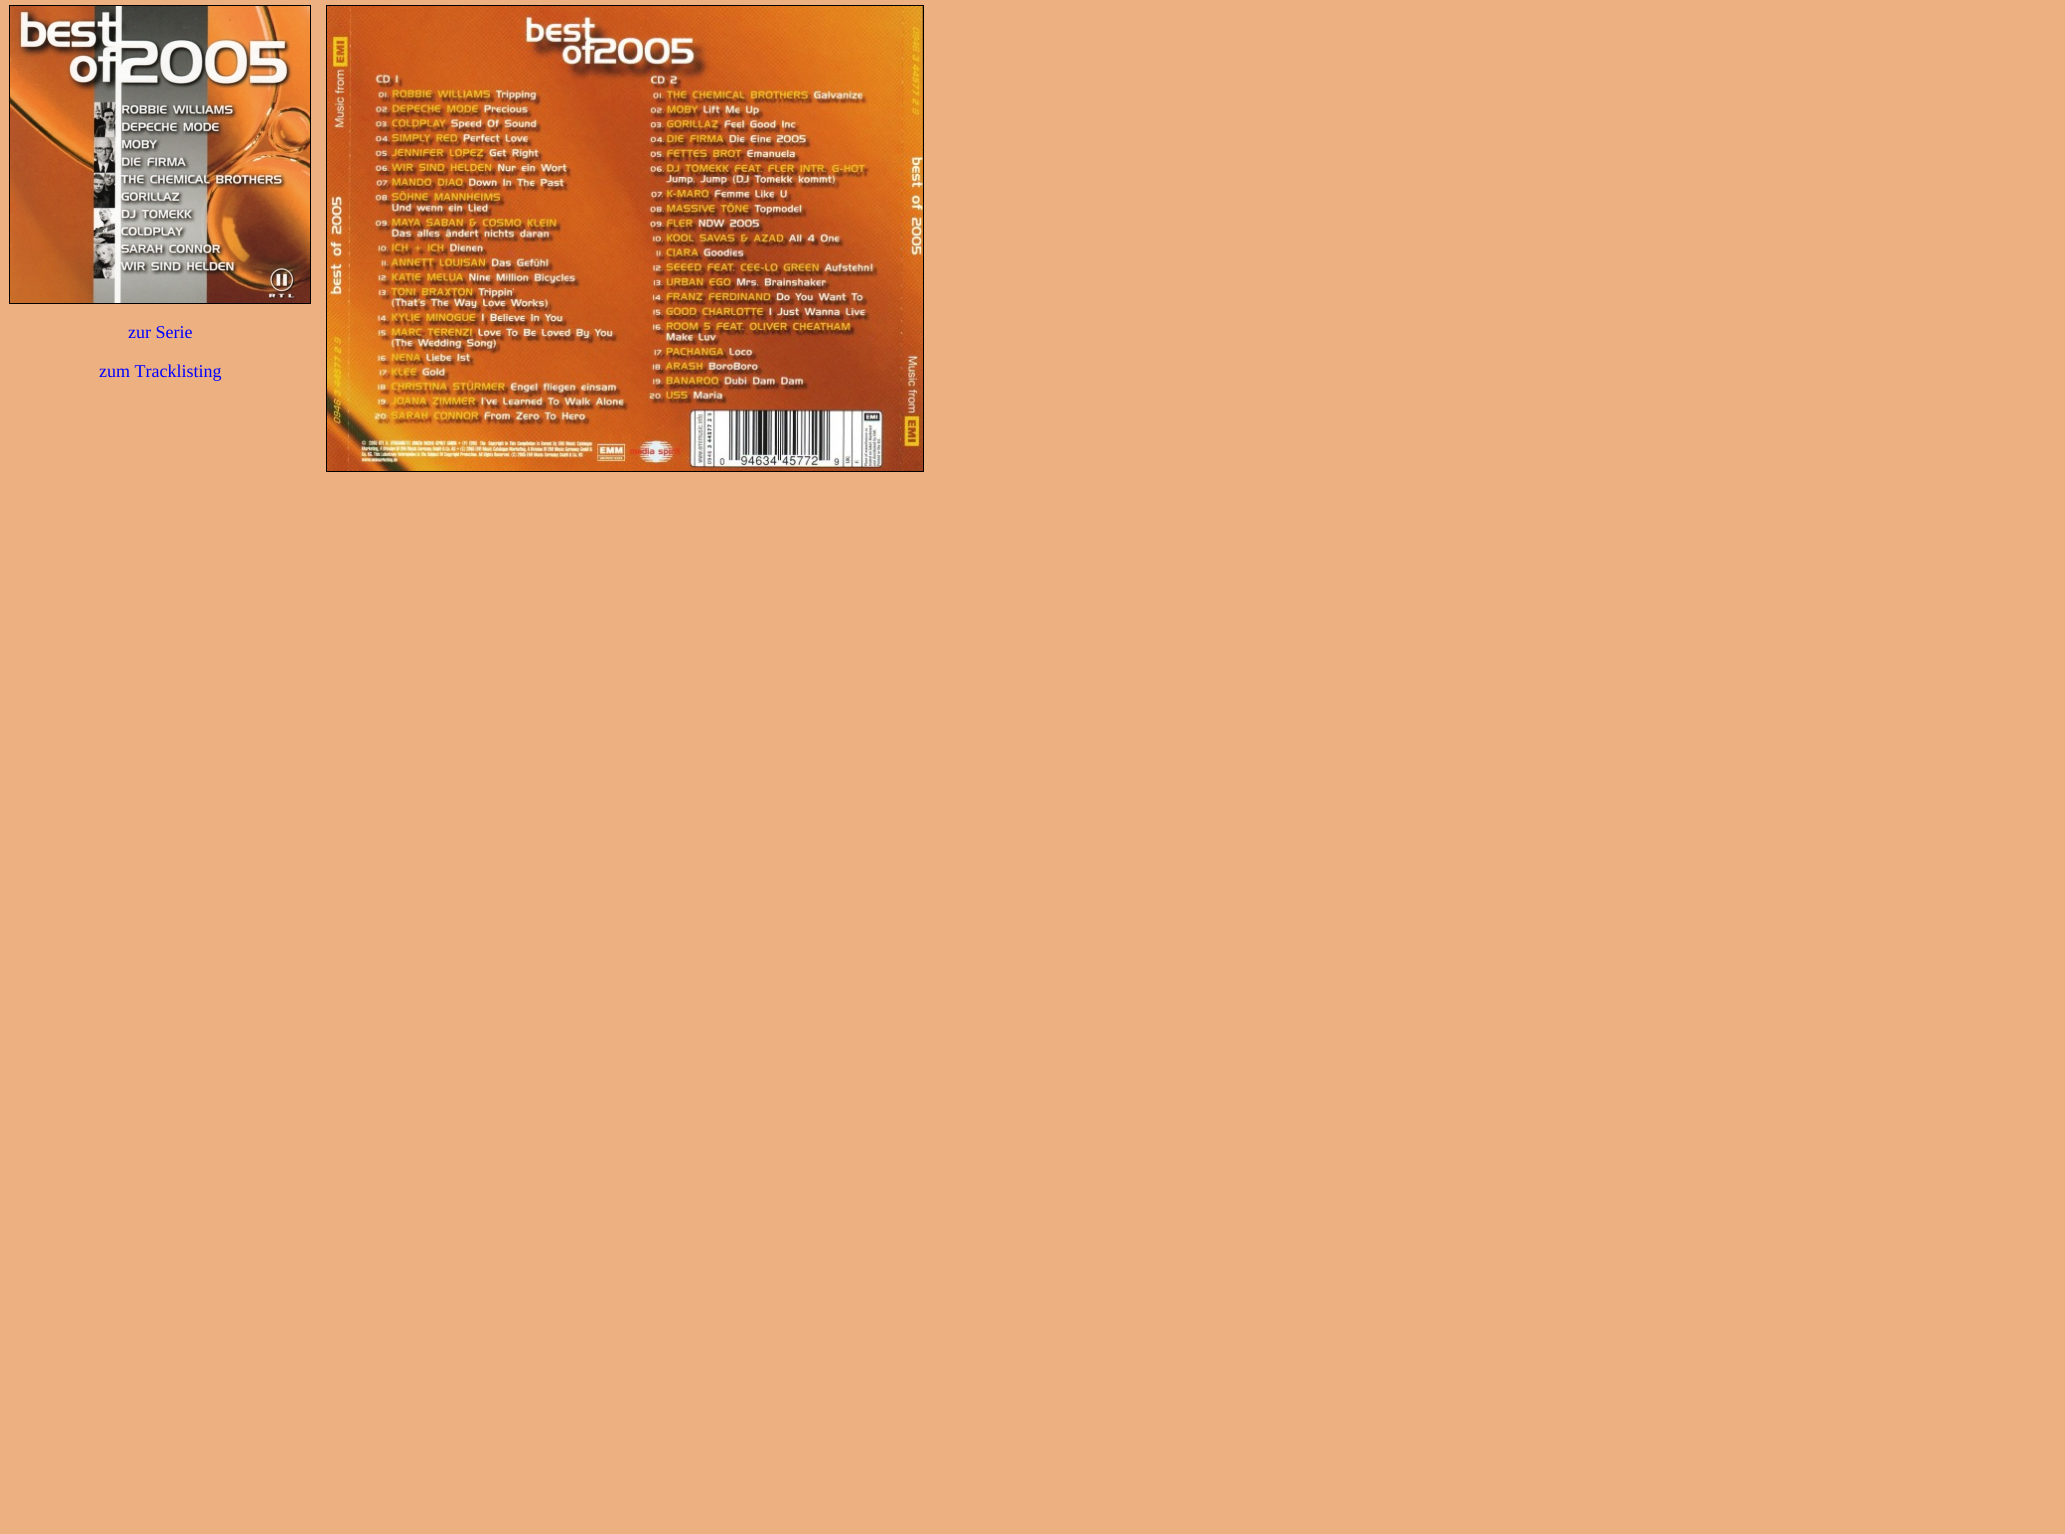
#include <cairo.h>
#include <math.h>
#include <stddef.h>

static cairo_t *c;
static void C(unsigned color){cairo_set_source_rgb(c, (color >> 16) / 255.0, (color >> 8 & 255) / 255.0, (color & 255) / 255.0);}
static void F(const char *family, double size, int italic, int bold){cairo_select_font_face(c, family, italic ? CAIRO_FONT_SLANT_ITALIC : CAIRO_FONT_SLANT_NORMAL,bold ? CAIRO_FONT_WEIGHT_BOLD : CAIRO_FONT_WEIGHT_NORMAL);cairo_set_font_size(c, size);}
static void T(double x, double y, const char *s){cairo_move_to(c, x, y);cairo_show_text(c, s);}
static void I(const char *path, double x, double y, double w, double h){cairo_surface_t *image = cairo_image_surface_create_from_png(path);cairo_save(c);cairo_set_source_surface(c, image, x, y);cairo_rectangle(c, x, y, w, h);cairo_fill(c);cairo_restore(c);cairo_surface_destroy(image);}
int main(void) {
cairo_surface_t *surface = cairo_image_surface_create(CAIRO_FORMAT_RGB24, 2065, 1534);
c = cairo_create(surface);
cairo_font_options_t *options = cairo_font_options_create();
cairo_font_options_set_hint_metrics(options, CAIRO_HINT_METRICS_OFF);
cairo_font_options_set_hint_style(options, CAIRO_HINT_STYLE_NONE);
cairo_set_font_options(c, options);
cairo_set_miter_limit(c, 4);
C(0xedb081);
cairo_paint(c);
cairo_rectangle(c,9.5,5.5,301,298);
C(0x000000);
cairo_set_line_width(c,1);
cairo_stroke(c);
I("1.png",10,6,300,297);
F("Liberation Serif",18,0,0);
C(0x0000ff);
T(128,338,"zur Serie");
T(99,377,"zum Tracklisting");
cairo_rectangle(c,326.5,5.5,597,466);
C(0x000000);
cairo_stroke(c);
I("2.png",327,6,596,465);
cairo_surface_write_to_png(surface, "o.png");
cairo_font_options_destroy(options);
cairo_destroy(c);
cairo_surface_destroy(surface);
return 0;
}
